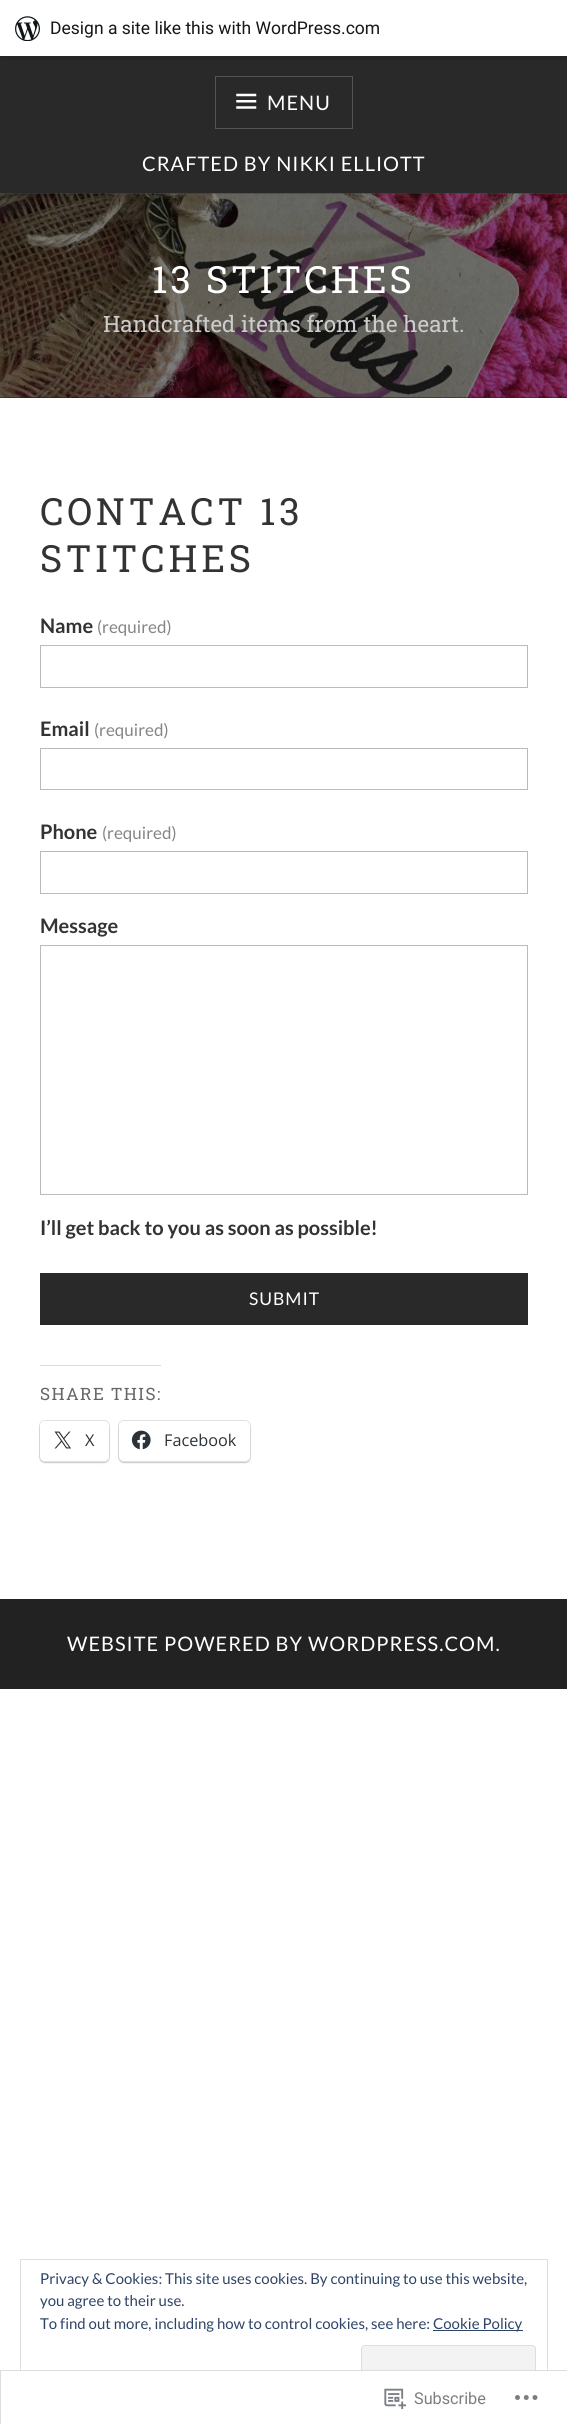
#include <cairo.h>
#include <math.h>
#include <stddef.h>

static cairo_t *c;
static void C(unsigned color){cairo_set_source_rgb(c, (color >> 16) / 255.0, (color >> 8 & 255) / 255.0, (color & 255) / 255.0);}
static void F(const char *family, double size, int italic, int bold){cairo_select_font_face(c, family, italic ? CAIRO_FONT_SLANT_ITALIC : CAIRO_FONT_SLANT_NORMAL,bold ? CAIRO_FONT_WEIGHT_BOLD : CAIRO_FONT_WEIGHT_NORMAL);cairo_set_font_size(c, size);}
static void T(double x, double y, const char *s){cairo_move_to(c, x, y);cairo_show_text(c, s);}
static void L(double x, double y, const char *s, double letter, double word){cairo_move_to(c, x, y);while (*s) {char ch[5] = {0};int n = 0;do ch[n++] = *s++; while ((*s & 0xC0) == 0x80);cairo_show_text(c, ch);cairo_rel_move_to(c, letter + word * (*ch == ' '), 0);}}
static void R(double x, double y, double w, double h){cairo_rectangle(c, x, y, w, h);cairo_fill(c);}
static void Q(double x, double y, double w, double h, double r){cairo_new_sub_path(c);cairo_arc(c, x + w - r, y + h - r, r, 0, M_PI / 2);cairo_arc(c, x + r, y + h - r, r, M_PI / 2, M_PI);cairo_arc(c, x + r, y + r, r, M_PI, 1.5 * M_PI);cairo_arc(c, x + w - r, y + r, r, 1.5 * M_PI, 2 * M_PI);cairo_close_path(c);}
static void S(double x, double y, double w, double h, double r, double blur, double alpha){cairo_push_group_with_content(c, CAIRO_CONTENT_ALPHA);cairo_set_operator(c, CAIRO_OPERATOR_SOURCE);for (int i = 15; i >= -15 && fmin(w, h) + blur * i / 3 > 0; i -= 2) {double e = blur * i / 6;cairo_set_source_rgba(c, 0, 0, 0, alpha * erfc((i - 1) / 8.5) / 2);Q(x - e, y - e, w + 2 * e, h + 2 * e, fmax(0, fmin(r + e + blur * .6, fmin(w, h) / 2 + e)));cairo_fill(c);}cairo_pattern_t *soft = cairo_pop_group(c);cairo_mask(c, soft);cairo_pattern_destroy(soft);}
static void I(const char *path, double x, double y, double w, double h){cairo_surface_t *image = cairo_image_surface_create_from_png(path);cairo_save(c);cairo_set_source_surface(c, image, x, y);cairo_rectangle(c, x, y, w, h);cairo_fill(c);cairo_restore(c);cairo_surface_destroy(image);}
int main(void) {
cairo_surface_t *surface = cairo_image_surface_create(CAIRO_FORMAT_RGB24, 567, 2424);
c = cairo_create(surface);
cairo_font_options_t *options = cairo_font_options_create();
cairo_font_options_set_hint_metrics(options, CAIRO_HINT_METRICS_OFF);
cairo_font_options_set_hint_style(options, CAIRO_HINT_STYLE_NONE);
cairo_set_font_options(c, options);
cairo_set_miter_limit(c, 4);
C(0xffffff);
cairo_paint(c);
C(0x29292a);
R(0,56,567,138);
C(0x262627);
cairo_new_path(c);
cairo_move_to(c,1,56);
cairo_line_to(c,1,60);
cairo_line_to(c,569,60);
cairo_line_to(c,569,4);
cairo_line_to(c,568,4);
cairo_line_to(c,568,56);
cairo_close_path(c);
cairo_fill(c);
I("1.png",15,16,25,25);
F("Roboto",17.5,0,0);
C(0x171717);
T(50,34,"Design a site like this with WordPress.com");
C(0x1a1a1a);
R(0,397,567,1);
cairo_rectangle(c,215.5,76.5,137,52);
C(0x545455);
cairo_set_line_width(c,1);
cairo_stroke(c);
I("2.png",236,93,21,16);
F("Lato",20,0,0);
C(0xffffff);
L(267,110,"MENU",1,0);
L(142,171,"CRAFTED BY NIKKI ELLIOTT",1,0);
I("3.png",0,193,567,205);
F("Roboto Slab",37.5,0,0);
L(152,293,"13 STITCHES",3,0);
F("Roboto Slab",22.5,0,0);
C(0xcccccc);
T(103,332,"Handcrafted items from the heart.");
F("Roboto Slab",37.5,0,0);
C(0x333333);
L(40,525,"CONTACT 13",3.75,0);
L(40,572,"STITCHES",3.75,0);
F("Lato",20,0,1);
T(40,633,"Name");
F("Lato",17,0,0);
C(0x858585);
T(97,633,"(required)");
cairo_rectangle(c,40.5,645.5,487,42);
C(0xbbbbbb);
cairo_stroke(c);
F("Lato",20,0,1);
C(0x333333);
T(40,736,"Email");
F("Lato",17,0,0);
C(0x858585);
T(94,736,"(required)");
cairo_rectangle(c,40.5,748.5,487,41);
C(0xbbbbbb);
cairo_stroke(c);
F("Lato",20,0,1);
C(0x333333);
T(40,839,"Phone");
F("Lato",17,0,0);
C(0x858585);
T(102,839,"(required)");
cairo_rectangle(c,40.5,851.5,487,42);
C(0xbbbbbb);
cairo_stroke(c);
F("Lato",20,0,1);
C(0x333333);
T(40,933,"Message");
cairo_rectangle(c,40.5,945.5,487,249);
C(0xbbbbbb);
cairo_stroke(c);
C(0x333333);
T(40,1235,"I’ll get back to you as soon as possible!");
C(0x29292a);
R(40,1273,488,52);
F("Lato",17.5,0,0);
C(0xffffff);
L(249,1305,"SUBMIT",1,0);
C(0xdcdcde);
R(40,1365,121,1);
F("Roboto Slab",17,0,0);
C(0x666666);
L(40,1400,"SHARE THIS:",1.4,0);
Q(39.5,1420.5,70,42,5.5);
C(0xe0e0e0);
cairo_stroke(c);
C(0x000000);
S(40,1423,69,40,5,1,.12);
C(0xffffff);
Q(40,1421,69,40,5);
cairo_fill(c);
I("4.png",54,1431,17,18);
F("Open Sans",16.25,0,0);
C(0x2c3338);
T(85,1446,"X");
Q(118.5,1420.5,132,42,5.5);
C(0xe0e0e0);
cairo_stroke(c);
C(0x000000);
S(119,1423,131,40,5,1,.12);
C(0xffffff);
Q(119,1421,131,40,5);
cairo_fill(c);
I("5.png",131,1430,20,20);
C(0x2c3338);
T(164,1446,"Facebook");
C(0x222222);
R(0,1599,567,90);
F("Lato",20,0,0);
C(0xffffff);
L(67,1651,"WEBSITE POWERED BY WORDPRESS.COM.",1,0);
cairo_rectangle(c,20.5,2259.5,527,145);
C(0xdedede);
cairo_stroke(c);
F("Lato",15,0,0);
C(0x2e4467);
T(40,2284,"Privacy & Cookies: This site uses cookies. By continuing to use this website,");
T(40,2306,"you agree to their use.");
T(40,2329,"To find out more, including how to control cookies, see here:");
R(433,2330,90,1);
T(433,2329,"Cookie Policy");
C(0xf3f3f3);
Q(361.5,2345.5,174,48,3.5);
cairo_fill_preserve(c);
C(0xdedede);
cairo_stroke(c);
cairo_set_source_rgba(c,1,1,1,0.98);
R(20,2370,528,35);
cairo_rectangle(c,.5,2370.5,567,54);
cairo_set_source_rgba(c,0.863,0.863,0.871,0.98);
cairo_stroke(c);
I("6.png",384,2388,22,22);
F("Roboto",16.25,0,0);
C(0x7b7f84);
T(414,2404,"Subscribe");
I("7.png",515,2395,23,5);
cairo_surface_write_to_png(surface, "o.png");
cairo_font_options_destroy(options);
cairo_destroy(c);
cairo_surface_destroy(surface);
return 0;
}
